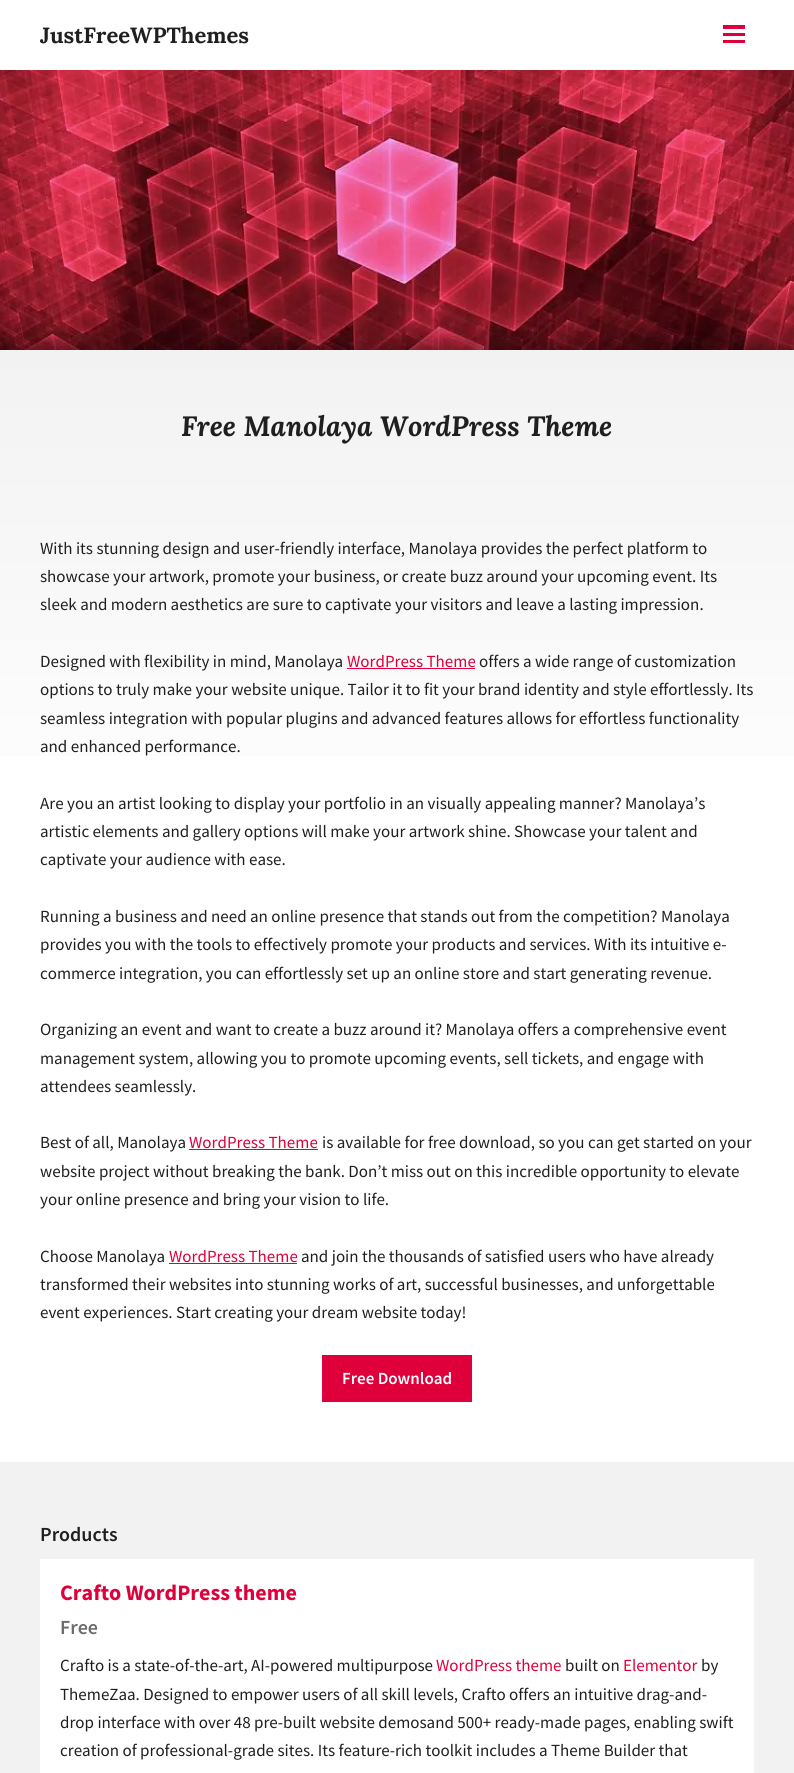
#include <cairo.h>
#include <math.h>
#include <stddef.h>

static cairo_t *c;
static void C(unsigned color){cairo_set_source_rgb(c, (color >> 16) / 255.0, (color >> 8 & 255) / 255.0, (color & 255) / 255.0);}
static void F(const char *family, double size, int italic, int bold){cairo_select_font_face(c, family, italic ? CAIRO_FONT_SLANT_ITALIC : CAIRO_FONT_SLANT_NORMAL,bold ? CAIRO_FONT_WEIGHT_BOLD : CAIRO_FONT_WEIGHT_NORMAL);cairo_set_font_size(c, size);}
static void T(double x, double y, const char *s){cairo_move_to(c, x, y);cairo_show_text(c, s);}
static void R(double x, double y, double w, double h){cairo_rectangle(c, x, y, w, h);cairo_fill(c);}
static void I(const char *path, double x, double y, double w, double h){cairo_surface_t *image = cairo_image_surface_create_from_png(path);cairo_save(c);cairo_set_source_surface(c, image, x, y);cairo_rectangle(c, x, y, w, h);cairo_fill(c);cairo_restore(c);cairo_surface_destroy(image);}
int main(void) {
cairo_surface_t *surface = cairo_image_surface_create(CAIRO_FORMAT_RGB24, 794, 1773);
c = cairo_create(surface);
cairo_font_options_t *options = cairo_font_options_create();
cairo_font_options_set_hint_metrics(options, CAIRO_HINT_METRICS_OFF);
cairo_font_options_set_hint_style(options, CAIRO_HINT_STYLE_NONE);
cairo_set_font_options(c, options);
cairo_set_miter_limit(c, 4);
cairo_pattern_t *gradient;
C(0xffffff);
cairo_paint(c);
I("1.png",0,70,794,280);
F("Lora",22,0,1);
C(0x1f1f1f);
T(40,43,"JustFreeWPThemes");
C(0xdf003b);
R(723,25,22,4);
R(723,33,22,3);
R(723,40,22,3);
gradient = cairo_pattern_create_linear(397,350,397,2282);
cairo_pattern_add_color_stop_rgba(gradient,0,0.949,0.949,0.949,1);
cairo_pattern_add_color_stop_rgba(gradient,.26,1,1,1,1);
cairo_set_source(c,gradient);
cairo_pattern_destroy(gradient);
R(0,350,794,406);
F("Lora",28,1,1);
C(0x1f1f1f);
T(181,436,"Free Manolaya WordPress Theme");
F("Source Sans Pro",17,0,0);
T(40,554,"With its stunning design and user-friendly interface, Manolaya provides the perfect platform to");
T(40,582,"showcase your artwork, promote your business, or create buzz around your upcoming event. Its");
T(40,610,"sleek and modern aesthetics are sure to captivate your visitors and leave a lasting impression.");
T(40,667,"Designed with flexibility in mind, Manolaya");
C(0xdf003b);
T(347,667,"WordPress Theme");
R(347,668,128,1);
C(0x1f1f1f);
T(479,667,"offers a wide range of customization");
T(40,695,"options to truly make your website unique. Tailor it to fit your brand identity and style effortlessly. Its");
T(40,724,"seamless integration with popular plugins and advanced features allows for effortless functionality");
T(40,752,"and enhanced performance.");
T(40,809,"Are you an artist looking to display your portfolio in an visually appealing manner? Manolaya’s");
T(40,837,"artistic elements and gallery options will make your artwork shine. Showcase your talent and");
T(40,865,"captivate your audience with ease.");
T(40,922,"Running a business and need an online presence that stands out from the competition? Manolaya");
T(40,950,"provides you with the tools to effectively promote your products and services. With its intuitive e-");
T(40,979,"commerce integration, you can effortlessly set up an online store and start generating revenue.");
T(40,1035,"Organizing an event and want to create a buzz around it? Manolaya offers a comprehensive event");
T(40,1064,"management system, allowing you to promote upcoming events, sell tickets, and engage with");
T(40,1092,"attendees seamlessly.");
T(40,1148,"Best of all, Manolaya");
C(0xdf003b);
T(189,1148,"WordPress Theme");
R(189,1149,129,1);
C(0x1f1f1f);
T(322,1148,"is available for free download, so you can get started on your");
T(40,1177,"website project without breaking the bank. Don’t miss out on this incredible opportunity to elevate");
T(40,1205,"your online presence and bring your vision to life.");
T(40,1262,"Choose Manolaya");
C(0xdf003b);
T(169,1262,"WordPress Theme");
R(169,1263,128,1);
C(0x1f1f1f);
T(301,1262,"and join the thousands of satisfied users who have already");
T(40,1290,"transformed their websites into stunning works of art, successful businesses, and unforgettable");
T(40,1318,"event experiences. Start creating your dream website today!");
C(0xdf003b);
R(322,1355,150,47);
F("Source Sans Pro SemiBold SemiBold",17,0,0);
C(0xffffff);
T(342,1384,"Free Download");
C(0xf2f2f2);
R(0,1462,794,311);
F("Source Sans Pro SemiBold SemiBold",20,0,0);
C(0x1f1f1f);
T(40,1541,"Products");
C(0xffffff);
R(40,1559,714,214);
F("Source Sans Pro",22,0,1);
C(0xdf003b);
T(60,1600,"Crafto WordPress theme");
F("Source Sans Pro SemiBold SemiBold",20,0,0);
C(0x6c6c6c);
T(60,1634,"Free");
F("Source Sans Pro",17,0,0);
C(0x1f1f1f);
T(60,1671,"Crafto is a state-of-the-art, AI-powered multipurpose");
C(0xdf003b);
T(436,1671,"WordPress theme");
C(0x1f1f1f);
T(565,1671,"built on");
C(0xdf003b);
T(623,1671,"Elementor");
C(0x1f1f1f);
T(701,1671,"by");
T(60,1700,"ThemeZaa. Designed to empower users of all skill levels, Crafto offers an intuitive drag-and-");
T(60,1728,"drop interface with over 48 pre-built website demosand 500+ ready-made pages, enabling swift");
T(60,1756,"creation of professional-grade sites. Its feature-rich toolkit includes a Theme Builder that");
cairo_surface_write_to_png(surface, "o.png");
cairo_font_options_destroy(options);
cairo_destroy(c);
cairo_surface_destroy(surface);
return 0;
}
